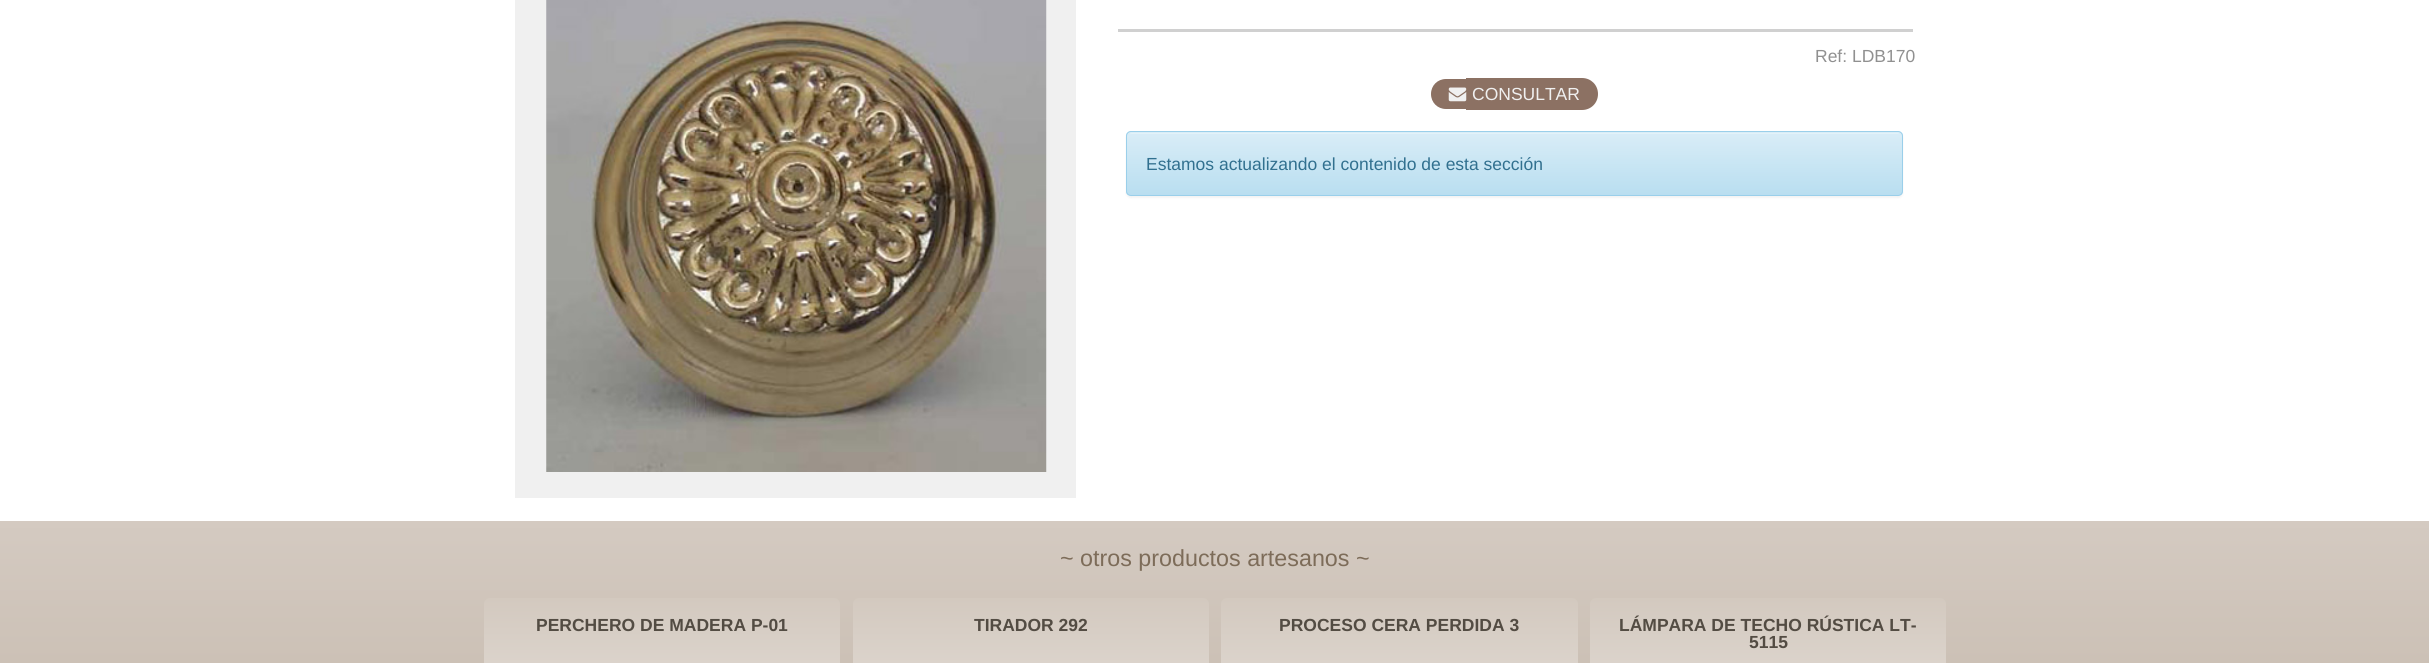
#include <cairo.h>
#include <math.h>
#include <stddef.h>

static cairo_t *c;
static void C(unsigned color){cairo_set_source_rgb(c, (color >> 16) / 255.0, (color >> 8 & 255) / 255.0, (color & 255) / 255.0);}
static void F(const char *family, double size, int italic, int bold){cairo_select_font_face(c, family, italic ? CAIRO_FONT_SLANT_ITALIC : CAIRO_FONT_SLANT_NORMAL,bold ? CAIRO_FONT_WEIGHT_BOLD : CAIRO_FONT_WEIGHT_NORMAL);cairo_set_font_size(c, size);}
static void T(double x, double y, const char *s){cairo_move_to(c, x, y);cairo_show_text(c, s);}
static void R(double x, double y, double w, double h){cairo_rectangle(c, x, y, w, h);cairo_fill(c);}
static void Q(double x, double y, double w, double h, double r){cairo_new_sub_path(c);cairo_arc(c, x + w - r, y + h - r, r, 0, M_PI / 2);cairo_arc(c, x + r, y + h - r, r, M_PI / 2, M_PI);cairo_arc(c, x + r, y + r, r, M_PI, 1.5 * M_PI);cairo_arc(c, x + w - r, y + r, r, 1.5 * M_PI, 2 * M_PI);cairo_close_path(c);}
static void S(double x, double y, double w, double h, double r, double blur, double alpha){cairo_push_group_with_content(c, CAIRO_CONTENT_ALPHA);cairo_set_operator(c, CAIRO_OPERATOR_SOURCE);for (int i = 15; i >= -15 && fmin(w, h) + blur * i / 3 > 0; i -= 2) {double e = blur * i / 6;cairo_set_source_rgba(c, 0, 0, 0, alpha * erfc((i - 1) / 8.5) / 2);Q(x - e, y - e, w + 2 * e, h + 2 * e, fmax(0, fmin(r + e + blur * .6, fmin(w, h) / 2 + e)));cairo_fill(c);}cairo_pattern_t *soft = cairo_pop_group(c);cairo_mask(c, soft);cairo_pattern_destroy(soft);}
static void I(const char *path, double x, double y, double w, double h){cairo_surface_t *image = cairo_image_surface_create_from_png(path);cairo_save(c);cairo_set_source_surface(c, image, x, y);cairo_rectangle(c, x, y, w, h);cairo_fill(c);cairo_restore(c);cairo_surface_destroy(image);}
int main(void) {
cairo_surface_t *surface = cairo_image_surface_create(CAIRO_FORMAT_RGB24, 2429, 663);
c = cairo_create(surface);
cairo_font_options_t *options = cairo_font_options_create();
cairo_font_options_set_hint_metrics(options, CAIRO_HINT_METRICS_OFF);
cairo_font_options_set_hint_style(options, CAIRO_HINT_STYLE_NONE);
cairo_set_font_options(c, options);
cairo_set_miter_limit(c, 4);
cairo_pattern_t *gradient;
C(0xffffff);
cairo_paint(c);
C(0xf0f0f0);
R(515,0,561,498);
I("1.png",546,0,501,472);
C(0xd0d0d0);
R(1118,29,795,3);
F("Liberation Sans",17.5,0,0);
C(0x909090);
T(1815,62,"Ref: LDB170");
C(0x8c7163);
cairo_new_path(c);
cairo_move_to(c,1446,79);
cairo_line_to(c,1466,79);
cairo_line_to(c,1466,109);
cairo_line_to(c,1446,109);
cairo_curve_to(c,1437.5,109,1431,102.5,1431,94);
cairo_curve_to(c,1431,85.5,1437.5,79,1446,79);
cairo_close_path(c);
cairo_fill(c);
cairo_new_path(c);
cairo_move_to(c,1466,78);
cairo_line_to(c,1582,78);
cairo_curve_to(c,1591,78,1598,85,1598,94);
cairo_curve_to(c,1598,103,1591,110,1582,110);
cairo_line_to(c,1466,110);
cairo_close_path(c);
cairo_fill(c);
I("2.png",1448,87,19,15);
C(0xf0f0f0);
T(1472,100,"CONSULTAR");
C(0x000000);
S(1126,133,777,65,5,1,.05);
C(0xd9edf7);
Q(1126,131,777,65,5);
cairo_fill(c);
cairo_save(c);
Q(1126,131,777,65,5);
cairo_clip(c);
gradient = cairo_pattern_create_linear(1514,132,1514,195);
cairo_pattern_add_color_stop_rgba(gradient,0,0.851,0.929,0.969,1);
cairo_pattern_add_color_stop_rgba(gradient,1,0.725,0.871,0.941,1);
cairo_set_source(c,gradient);
cairo_pattern_destroy(gradient);
R(1126,133,777,62);
cairo_restore(c);
C(0xe2f2f9);
cairo_new_path(c);
cairo_move_to(c,1131,134);
cairo_line_to(c,1898,134);
cairo_curve_to(c,1900,134,1901,135,1901,138);
cairo_line_to(c,1901,137);
cairo_curve_to(c,1901,135,1899,133,1897,133);
cairo_line_to(c,1132,133);
cairo_curve_to(c,1130,133,1128,135,1128,137);
cairo_line_to(c,1128,138);
cairo_curve_to(c,1128,135,1129,134,1131,134);
cairo_close_path(c);
cairo_fill(c);
Q(1126.5,131.5,776,64,4.5);
C(0x9acfea);
cairo_set_line_width(c,1);
cairo_stroke(c);
C(0x31708f);
T(1146,170,"Estamos actualizando el contenido de esta sección");
gradient = cairo_pattern_create_linear(1215,521,1215,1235);
cairo_pattern_add_color_stop_rgba(gradient,0,0.831,0.792,0.757,1);
cairo_pattern_add_color_stop_rgba(gradient,1,0.675,0.612,0.537,1);
cairo_set_source(c,gradient);
cairo_pattern_destroy(gradient);
R(0,521,2429,142);
F("Liberation Sans",23.3,0,0);
C(0x7d6c59);
T(1060,566,"~ otros productos artesanos ~");
gradient = cairo_pattern_create_linear(662,598,662,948);
cairo_pattern_add_color_stop_rgba(gradient,0,0.827,0.788,0.749,1);
cairo_pattern_add_color_stop_rgba(gradient,1,1,1,1,1);
cairo_set_source(c,gradient);
cairo_pattern_destroy(gradient);
Q(484,598,356,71,6);
cairo_fill(c);
F("Liberation Sans",17.5,0,1);
C(0x534c43);
T(536,631,"PERCHERO DE MADERA P-01");
gradient = cairo_pattern_create_linear(1031,598,1031,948);
cairo_pattern_add_color_stop_rgba(gradient,0,0.827,0.788,0.749,1);
cairo_pattern_add_color_stop_rgba(gradient,1,1,1,1,1);
cairo_set_source(c,gradient);
cairo_pattern_destroy(gradient);
Q(853,598,356,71,6);
cairo_fill(c);
C(0x534c43);
T(974,631,"TIRADOR 292");
gradient = cairo_pattern_create_linear(1399,598,1399,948);
cairo_pattern_add_color_stop_rgba(gradient,0,0.827,0.788,0.749,1);
cairo_pattern_add_color_stop_rgba(gradient,1,1,1,1,1);
cairo_set_source(c,gradient);
cairo_pattern_destroy(gradient);
Q(1221,598,357,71,6);
cairo_fill(c);
C(0x534c43);
T(1279,631,"PROCESO CERA PERDIDA 3");
gradient = cairo_pattern_create_linear(1768,598,1768,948);
cairo_pattern_add_color_stop_rgba(gradient,0,0.827,0.788,0.749,1);
cairo_pattern_add_color_stop_rgba(gradient,1,1,1,1,1);
cairo_set_source(c,gradient);
cairo_pattern_destroy(gradient);
Q(1590,598,356,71,6);
cairo_fill(c);
C(0x534c43);
T(1619,631,"LÁMPARA DE TECHO RÚSTICA LT-");
T(1749,648,"5115");
cairo_surface_write_to_png(surface, "o.png");
cairo_font_options_destroy(options);
cairo_destroy(c);
cairo_surface_destroy(surface);
return 0;
}
